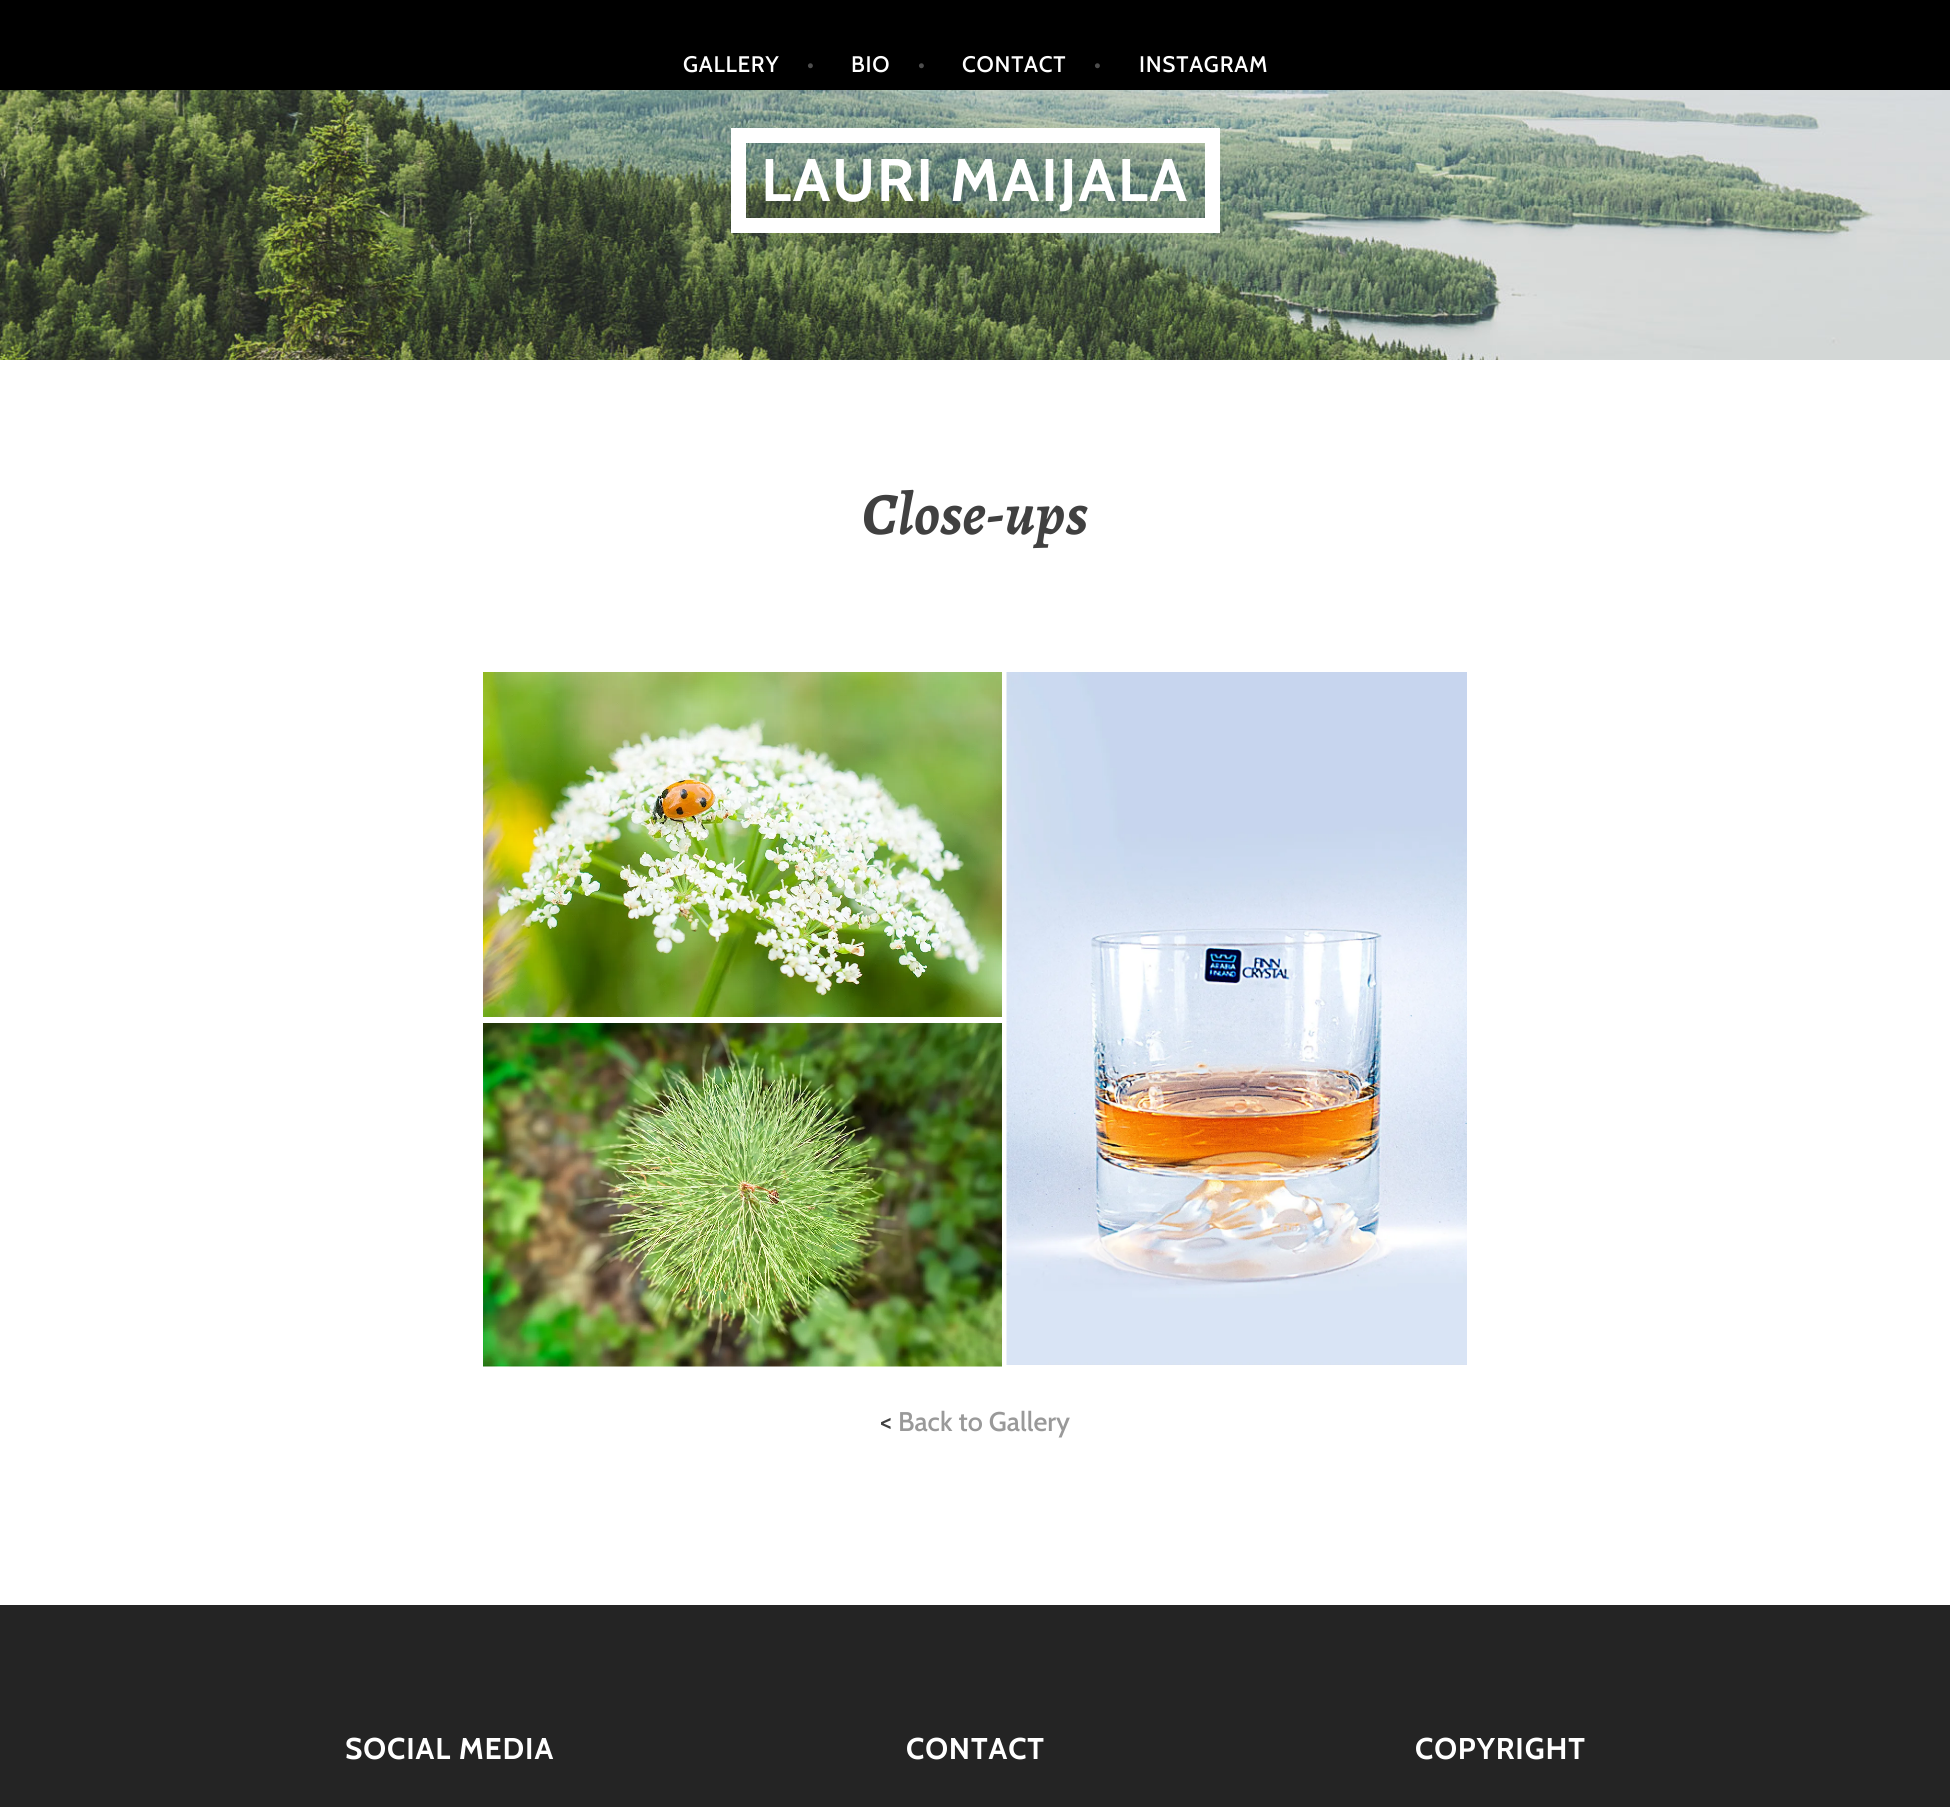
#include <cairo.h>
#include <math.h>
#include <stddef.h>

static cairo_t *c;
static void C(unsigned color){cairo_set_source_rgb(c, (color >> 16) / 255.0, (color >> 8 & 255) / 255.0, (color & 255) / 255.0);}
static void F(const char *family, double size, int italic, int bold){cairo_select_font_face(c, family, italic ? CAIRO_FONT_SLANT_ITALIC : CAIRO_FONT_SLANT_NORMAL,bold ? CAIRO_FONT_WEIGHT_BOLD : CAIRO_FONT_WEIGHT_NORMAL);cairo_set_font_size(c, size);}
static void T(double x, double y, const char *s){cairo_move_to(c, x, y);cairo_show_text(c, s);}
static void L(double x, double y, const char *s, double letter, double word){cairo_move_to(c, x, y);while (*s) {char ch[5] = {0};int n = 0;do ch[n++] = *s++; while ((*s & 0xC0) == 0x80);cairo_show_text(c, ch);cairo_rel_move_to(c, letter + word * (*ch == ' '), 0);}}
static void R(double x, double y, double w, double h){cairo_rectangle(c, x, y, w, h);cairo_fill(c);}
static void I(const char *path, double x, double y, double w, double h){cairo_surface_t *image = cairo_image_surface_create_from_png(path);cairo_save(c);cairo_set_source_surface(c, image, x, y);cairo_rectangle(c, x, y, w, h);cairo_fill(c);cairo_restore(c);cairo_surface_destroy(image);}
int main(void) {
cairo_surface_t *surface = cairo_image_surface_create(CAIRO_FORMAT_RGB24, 1950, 1807);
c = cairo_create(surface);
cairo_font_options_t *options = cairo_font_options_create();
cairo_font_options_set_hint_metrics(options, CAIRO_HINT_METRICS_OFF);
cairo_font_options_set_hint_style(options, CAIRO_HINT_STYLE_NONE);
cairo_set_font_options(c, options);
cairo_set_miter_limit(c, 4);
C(0xffffff);
cairo_paint(c);
C(0x000000);
R(0,0,1950,90);
F("Cabin Medium",22.5,0,0);
C(0xffffff);
L(683,72,"GALLERY",.75,0);
C(0x4d4d4d);
L(807,72,"•",.75,0);
C(0xffffff);
L(851,72,"BIO",.75,0);
C(0x4d4d4d);
L(918,72,"•",.75,0);
C(0xffffff);
L(962,72,"CONTACT",.75,0);
C(0x4d4d4d);
L(1094,72,"•",.75,0);
C(0xffffff);
L(1139,72,"INSTAGRAM",.75,0);
I("1.png",0,90,1950,270);
cairo_rectangle(c,738.5,135.5,474,90);
cairo_set_line_width(c,15);
cairo_stroke(c);
F("Cabin",60,0,1);
L(761,201,"LAURI MAIJALA",1.75,0);
F("Alegreya",60,1,1);
C(0x404040);
T(862,534,"Close-ups");
I("2.png",483,672,519,345);
I("3.png",483,1023,519,344);
I("4.png",1006,672,461,693);
F("Cabin Medium",27,0,0);
T(880,1431,"<");
C(0x999999);
T(898,1431,"Back to Gallery");
C(0x242424);
R(0,1605,1950,202);
F("Cabin",30,0,1);
C(0xffffff);
L(345,1759,"SOCIAL MEDIA",.9,0);
L(906,1759,"CONTACT",.9,0);
L(1415,1759,"COPYRIGHT",.9,0);
cairo_surface_write_to_png(surface, "o.png");
cairo_font_options_destroy(options);
cairo_destroy(c);
cairo_surface_destroy(surface);
return 0;
}
